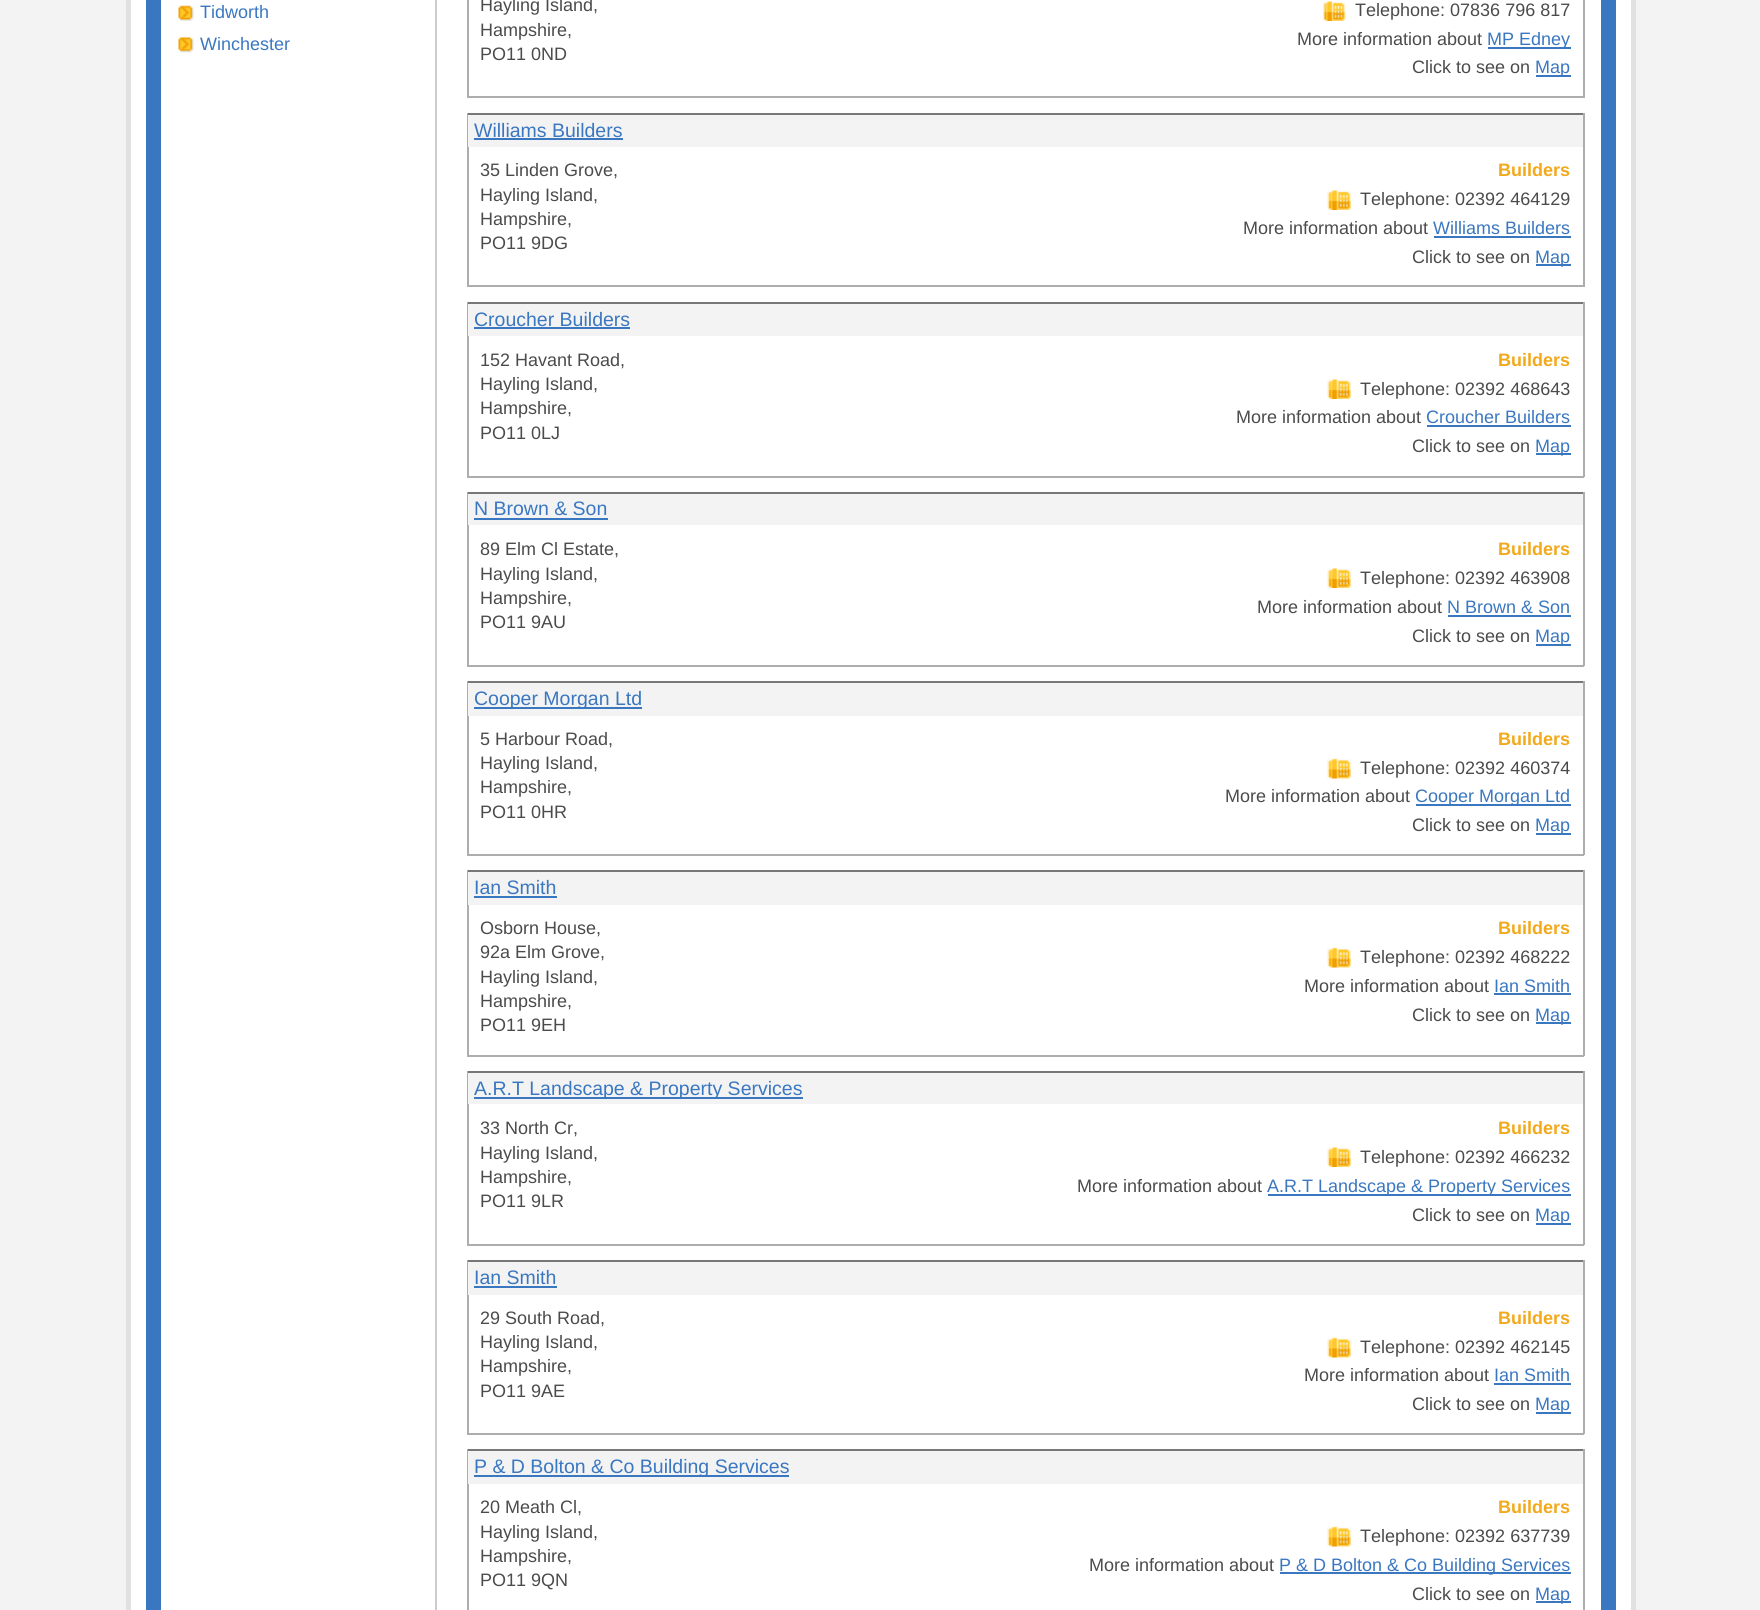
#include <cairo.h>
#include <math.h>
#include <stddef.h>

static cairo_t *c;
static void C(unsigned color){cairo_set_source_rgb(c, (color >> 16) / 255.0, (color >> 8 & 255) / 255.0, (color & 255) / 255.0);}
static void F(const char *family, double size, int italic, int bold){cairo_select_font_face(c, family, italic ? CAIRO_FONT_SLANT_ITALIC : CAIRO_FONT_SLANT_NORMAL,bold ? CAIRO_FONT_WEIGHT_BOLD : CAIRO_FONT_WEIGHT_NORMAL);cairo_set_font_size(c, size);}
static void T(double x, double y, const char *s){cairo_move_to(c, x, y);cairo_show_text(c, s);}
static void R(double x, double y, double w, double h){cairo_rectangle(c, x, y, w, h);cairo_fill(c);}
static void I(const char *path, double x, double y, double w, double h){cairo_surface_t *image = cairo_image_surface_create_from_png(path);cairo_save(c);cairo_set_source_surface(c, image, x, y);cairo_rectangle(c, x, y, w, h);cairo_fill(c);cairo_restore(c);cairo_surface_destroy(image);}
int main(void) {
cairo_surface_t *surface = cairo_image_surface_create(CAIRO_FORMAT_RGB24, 1760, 1610);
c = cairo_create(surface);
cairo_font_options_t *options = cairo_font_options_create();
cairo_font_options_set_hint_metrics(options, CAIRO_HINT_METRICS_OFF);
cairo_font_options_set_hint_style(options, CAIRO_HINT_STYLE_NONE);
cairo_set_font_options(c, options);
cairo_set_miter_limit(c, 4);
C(0xf3f3f3);
cairo_paint(c);
C(0xffffff);
R(131,0,1500,1610);
C(0xe1e1e1);
R(1631,0,5,1610);
R(126,0,5,1610);
C(0x3a77c1);
R(146,0,1470,1610);
C(0xffffff);
R(161,0,1440,1610);
I("1.png",178,5,16,16);
F("Liberation Sans",18,0,0);
C(0x3a77c1);
T(200,18,"Tidworth");
I("2.png",178,37,16,16);
T(200,50,"Winchester");
C(0xcccccc);
R(435,0,2,1610);
C(0xadadad);
R(1583,0,2,98);
R(467,96,1117,2);
R(467,0,2,98);
C(0x4b4b4b);
T(480,11,"Hayling Island,");
T(480,36,"Hampshire,");
T(480,60,"PO11 0ND");
I("3.png",1323,1,23,20);
T(1355,16,"Telephone: 07836 796 817");
T(1297,45,"More information about");
C(0x3a77c1);
R(1488,47,83,2);
T(1487,45,"MP Edney");
C(0x4b4b4b);
T(1412,73,"Click to see on");
C(0x3a77c1);
R(1536,75,35,2);
T(1535,73,"Map");
C(0xadadad);
R(1583,113,2,174);
R(467,285,1117,2);
R(467,113,2,174);
C(0xf3f3f3);
R(468,115,1115,32);
C(0x777777);
R(468,113,1115,2);
F("Liberation Sans",19.5,0,0);
C(0x3a77c1);
T(474,137,"Williams Builders");
R(474,138,149,2);
F("Liberation Sans",18,0,0);
C(0x4b4b4b);
T(480,176,"35 Linden Grove,");
T(480,201,"Hayling Island,");
T(480,225,"Hampshire,");
T(480,249,"PO11 9DG");
F("Liberation Sans",18,0,1);
C(0xf2a91b);
T(1498,176,"Builders");
I("4.png",1327,190,25,20);
F("Liberation Sans",18,0,0);
C(0x4b4b4b);
T(1360,205,"Telephone: 02392 464129");
T(1243,234,"More information about");
C(0x3a77c1);
T(1433,234,"Williams Builders");
R(1434,236,137,2);
C(0x4b4b4b);
T(1412,263,"Click to see on");
C(0x3a77c1);
R(1536,264,35,2);
T(1535,263,"Map");
C(0xadadad);
R(1583,302,2,175);
R(467,476,1117,2);
R(467,302,2,175);
C(0xf3f3f3);
R(468,304,1115,32);
C(0x777777);
R(468,302,1115,2);
F("Liberation Sans",19.5,0,0);
C(0x3a77c1);
T(474,326,"Croucher Builders");
R(474,327,156,2);
F("Liberation Sans",18,0,0);
C(0x4b4b4b);
T(480,366,"152 Havant Road,");
T(480,390,"Hayling Island,");
T(480,414,"Hampshire,");
T(480,439,"PO11 0LJ");
F("Liberation Sans",18,0,1);
C(0xf2a91b);
T(1498,366,"Builders");
I("4.png",1327,379,25,20);
F("Liberation Sans",18,0,0);
C(0x4b4b4b);
T(1360,395,"Telephone: 02392 468643");
T(1236,423,"More information about");
C(0x3a77c1);
T(1426,423,"Croucher Builders");
R(1427,425,144,2);
C(0x4b4b4b);
T(1412,452,"Click to see on");
C(0x3a77c1);
R(1536,453,35,2);
T(1535,452,"Map");
C(0xadadad);
R(1583,492,2,174);
R(467,665,1117,2);
R(467,492,2,174);
C(0xf3f3f3);
R(468,494,1115,31);
C(0x777777);
R(468,492,1115,2);
F("Liberation Sans",19.5,0,0);
C(0x3a77c1);
T(474,515,"N Brown & Son");
R(474,518,134,2);
F("Liberation Sans",18,0,0);
C(0x4b4b4b);
T(480,555,"89 Elm Cl Estate,");
T(480,580,"Hayling Island,");
T(480,604,"Hampshire,");
T(480,628,"PO11 9AU");
F("Liberation Sans",18,0,1);
C(0xf2a91b);
T(1498,555,"Builders");
I("4.png",1327,568,25,20);
F("Liberation Sans",18,0,0);
C(0x4b4b4b);
T(1360,584,"Telephone: 02392 463908");
T(1257,613,"More information about");
C(0x3a77c1);
T(1447,613,"N Brown & Son");
R(1448,615,123,2);
C(0x4b4b4b);
T(1412,642,"Click to see on");
C(0x3a77c1);
R(1536,644,35,2);
T(1535,642,"Map");
C(0xadadad);
R(1583,681,2,174);
R(467,854,1117,2);
R(467,681,2,174);
C(0xf3f3f3);
R(468,683,1115,33);
C(0x777777);
R(468,681,1115,2);
C(0x3a77c1);
R(474,707,168,2);
F("Liberation Sans",19.5,0,0);
T(474,705,"Cooper Morgan Ltd");
F("Liberation Sans",18,0,0);
C(0x4b4b4b);
T(480,745,"5 Harbour Road,");
T(480,769,"Hayling Island,");
T(480,793,"Hampshire,");
T(480,818,"PO11 0HR");
F("Liberation Sans",18,0,1);
C(0xf2a91b);
T(1498,745,"Builders");
I("5.png",1327,758,25,21);
F("Liberation Sans",18,0,0);
C(0x4b4b4b);
T(1360,774,"Telephone: 02392 460374");
T(1225,802,"More information about");
C(0x3a77c1);
R(1416,804,155,2);
T(1415,802,"Cooper Morgan Ltd");
C(0x4b4b4b);
T(1412,831,"Click to see on");
C(0x3a77c1);
R(1536,833,35,2);
T(1535,831,"Map");
C(0xadadad);
R(1583,870,2,186);
R(467,1055,1117,2);
R(467,870,2,186);
C(0xf3f3f3);
R(468,872,1115,33);
C(0x777777);
R(468,870,1115,2);
F("Liberation Sans",19.5,0,0);
C(0x3a77c1);
T(474,894,"Ian Smith");
R(474,896,83,2);
F("Liberation Sans",18,0,0);
C(0x4b4b4b);
T(480,934,"Osborn House,");
T(480,958,"92a Elm Grove,");
T(480,983,"Hayling Island,");
T(480,1007,"Hampshire,");
T(480,1031,"PO11 9EH");
F("Liberation Sans",18,0,1);
C(0xf2a91b);
T(1498,934,"Builders");
I("5.png",1327,947,25,21);
F("Liberation Sans",18,0,0);
C(0x4b4b4b);
T(1360,963,"Telephone: 02392 468222");
T(1304,992,"More information about");
C(0x3a77c1);
T(1494,992,"Ian Smith");
R(1494,993,77,2);
C(0x4b4b4b);
T(1412,1021,"Click to see on");
C(0x3a77c1);
R(1536,1022,35,2);
T(1535,1021,"Map");
C(0xadadad);
R(1583,1071,2,174);
R(467,1244,1117,2);
R(467,1071,2,174);
C(0xf3f3f3);
R(468,1073,1115,31);
C(0x777777);
R(468,1071,1115,2);
C(0x3a77c1);
R(474,1097,329,2);
F("Liberation Sans",19.5,0,0);
T(474,1095,"A.R.T Landscape & Property Services");
F("Liberation Sans",18,0,0);
C(0x4b4b4b);
T(480,1134,"33 North Cr,");
T(480,1159,"Hayling Island,");
T(480,1183,"Hampshire,");
T(480,1207,"PO11 9LR");
F("Liberation Sans",18,0,1);
C(0xf2a91b);
T(1498,1134,"Builders");
I("4.png",1327,1147,25,20);
F("Liberation Sans",18,0,0);
C(0x4b4b4b);
T(1360,1163,"Telephone: 02392 466232");
T(1077,1192,"More information about");
C(0x3a77c1);
R(1268,1194,303,2);
T(1267,1192,"A.R.T Landscape & Property Services");
C(0x4b4b4b);
T(1412,1221,"Click to see on");
C(0x3a77c1);
R(1536,1223,35,2);
T(1535,1221,"Map");
C(0xadadad);
R(1583,1260,2,174);
R(467,1433,1117,2);
R(467,1260,2,174);
C(0xf3f3f3);
R(468,1262,1115,33);
C(0x777777);
R(468,1260,1115,2);
F("Liberation Sans",19.5,0,0);
C(0x3a77c1);
T(474,1284,"Ian Smith");
R(474,1286,83,2);
F("Liberation Sans",18,0,0);
C(0x4b4b4b);
T(480,1324,"29 South Road,");
T(480,1348,"Hayling Island,");
T(480,1372,"Hampshire,");
T(480,1397,"PO11 9AE");
F("Liberation Sans",18,0,1);
C(0xf2a91b);
T(1498,1324,"Builders");
I("5.png",1327,1337,25,21);
F("Liberation Sans",18,0,0);
C(0x4b4b4b);
T(1360,1353,"Telephone: 02392 462145");
T(1304,1381,"More information about");
C(0x3a77c1);
T(1494,1381,"Ian Smith");
R(1494,1383,77,2);
C(0x4b4b4b);
T(1412,1410,"Click to see on");
C(0x3a77c1);
R(1536,1412,35,2);
T(1535,1410,"Map");
C(0xadadad);
R(1583,1449,2,161);
R(467,1449,2,161);
C(0xf3f3f3);
R(468,1451,1115,33);
C(0x777777);
R(468,1449,1115,2);
C(0x3a77c1);
R(474,1475,315,2);
F("Liberation Sans",19.5,0,0);
T(474,1473,"P & D Bolton & Co Building Services");
F("Liberation Sans",18,0,0);
C(0x4b4b4b);
T(480,1513,"20 Meath Cl,");
T(480,1538,"Hayling Island,");
T(480,1562,"Hampshire,");
T(480,1586,"PO11 9QN");
F("Liberation Sans",18,0,1);
C(0xf2a91b);
T(1498,1513,"Builders");
I("5.png",1327,1526,25,21);
F("Liberation Sans",18,0,0);
C(0x4b4b4b);
T(1360,1542,"Telephone: 02392 637739");
T(1089,1571,"More information about");
C(0x3a77c1);
R(1280,1572,291,2);
T(1279,1571,"P & D Bolton & Co Building Services");
C(0x4b4b4b);
T(1412,1600,"Click to see on");
C(0x3a77c1);
R(1536,1601,35,2);
T(1535,1600,"Map");
cairo_surface_write_to_png(surface, "o.png");
cairo_font_options_destroy(options);
cairo_destroy(c);
cairo_surface_destroy(surface);
return 0;
}
